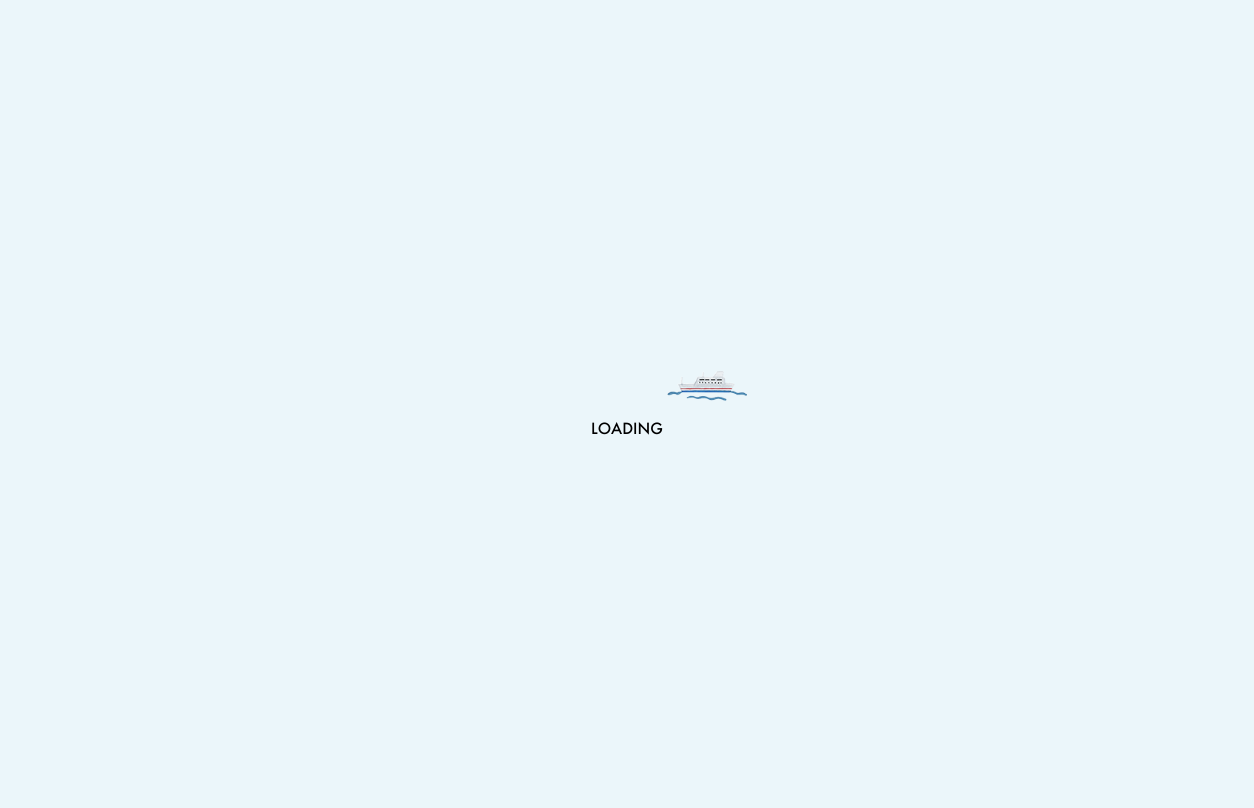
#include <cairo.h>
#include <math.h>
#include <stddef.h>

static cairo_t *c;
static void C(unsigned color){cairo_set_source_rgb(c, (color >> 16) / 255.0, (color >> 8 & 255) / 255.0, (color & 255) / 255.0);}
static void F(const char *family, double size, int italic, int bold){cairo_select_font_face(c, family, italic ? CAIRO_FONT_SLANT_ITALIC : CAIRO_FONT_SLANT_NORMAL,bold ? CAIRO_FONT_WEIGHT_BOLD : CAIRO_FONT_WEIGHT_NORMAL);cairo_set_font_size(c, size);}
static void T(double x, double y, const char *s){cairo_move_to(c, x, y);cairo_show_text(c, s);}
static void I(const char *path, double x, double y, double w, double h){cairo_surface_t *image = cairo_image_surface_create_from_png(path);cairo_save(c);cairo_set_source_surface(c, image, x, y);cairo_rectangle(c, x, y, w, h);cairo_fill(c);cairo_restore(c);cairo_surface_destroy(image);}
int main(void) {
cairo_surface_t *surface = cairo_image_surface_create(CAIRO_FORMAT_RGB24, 1254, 808);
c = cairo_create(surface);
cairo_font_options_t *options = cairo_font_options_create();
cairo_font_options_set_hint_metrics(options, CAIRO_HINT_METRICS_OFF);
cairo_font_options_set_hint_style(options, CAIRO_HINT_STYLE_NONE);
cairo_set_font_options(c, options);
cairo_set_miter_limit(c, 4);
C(0xebf6fa);
cairo_paint(c);
I("1.png",667,371,80,30);
F("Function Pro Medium",17,0,0);
C(0x000000);
T(591,434,"LOADING");
cairo_surface_write_to_png(surface, "o.png");
cairo_font_options_destroy(options);
cairo_destroy(c);
cairo_surface_destroy(surface);
return 0;
}
